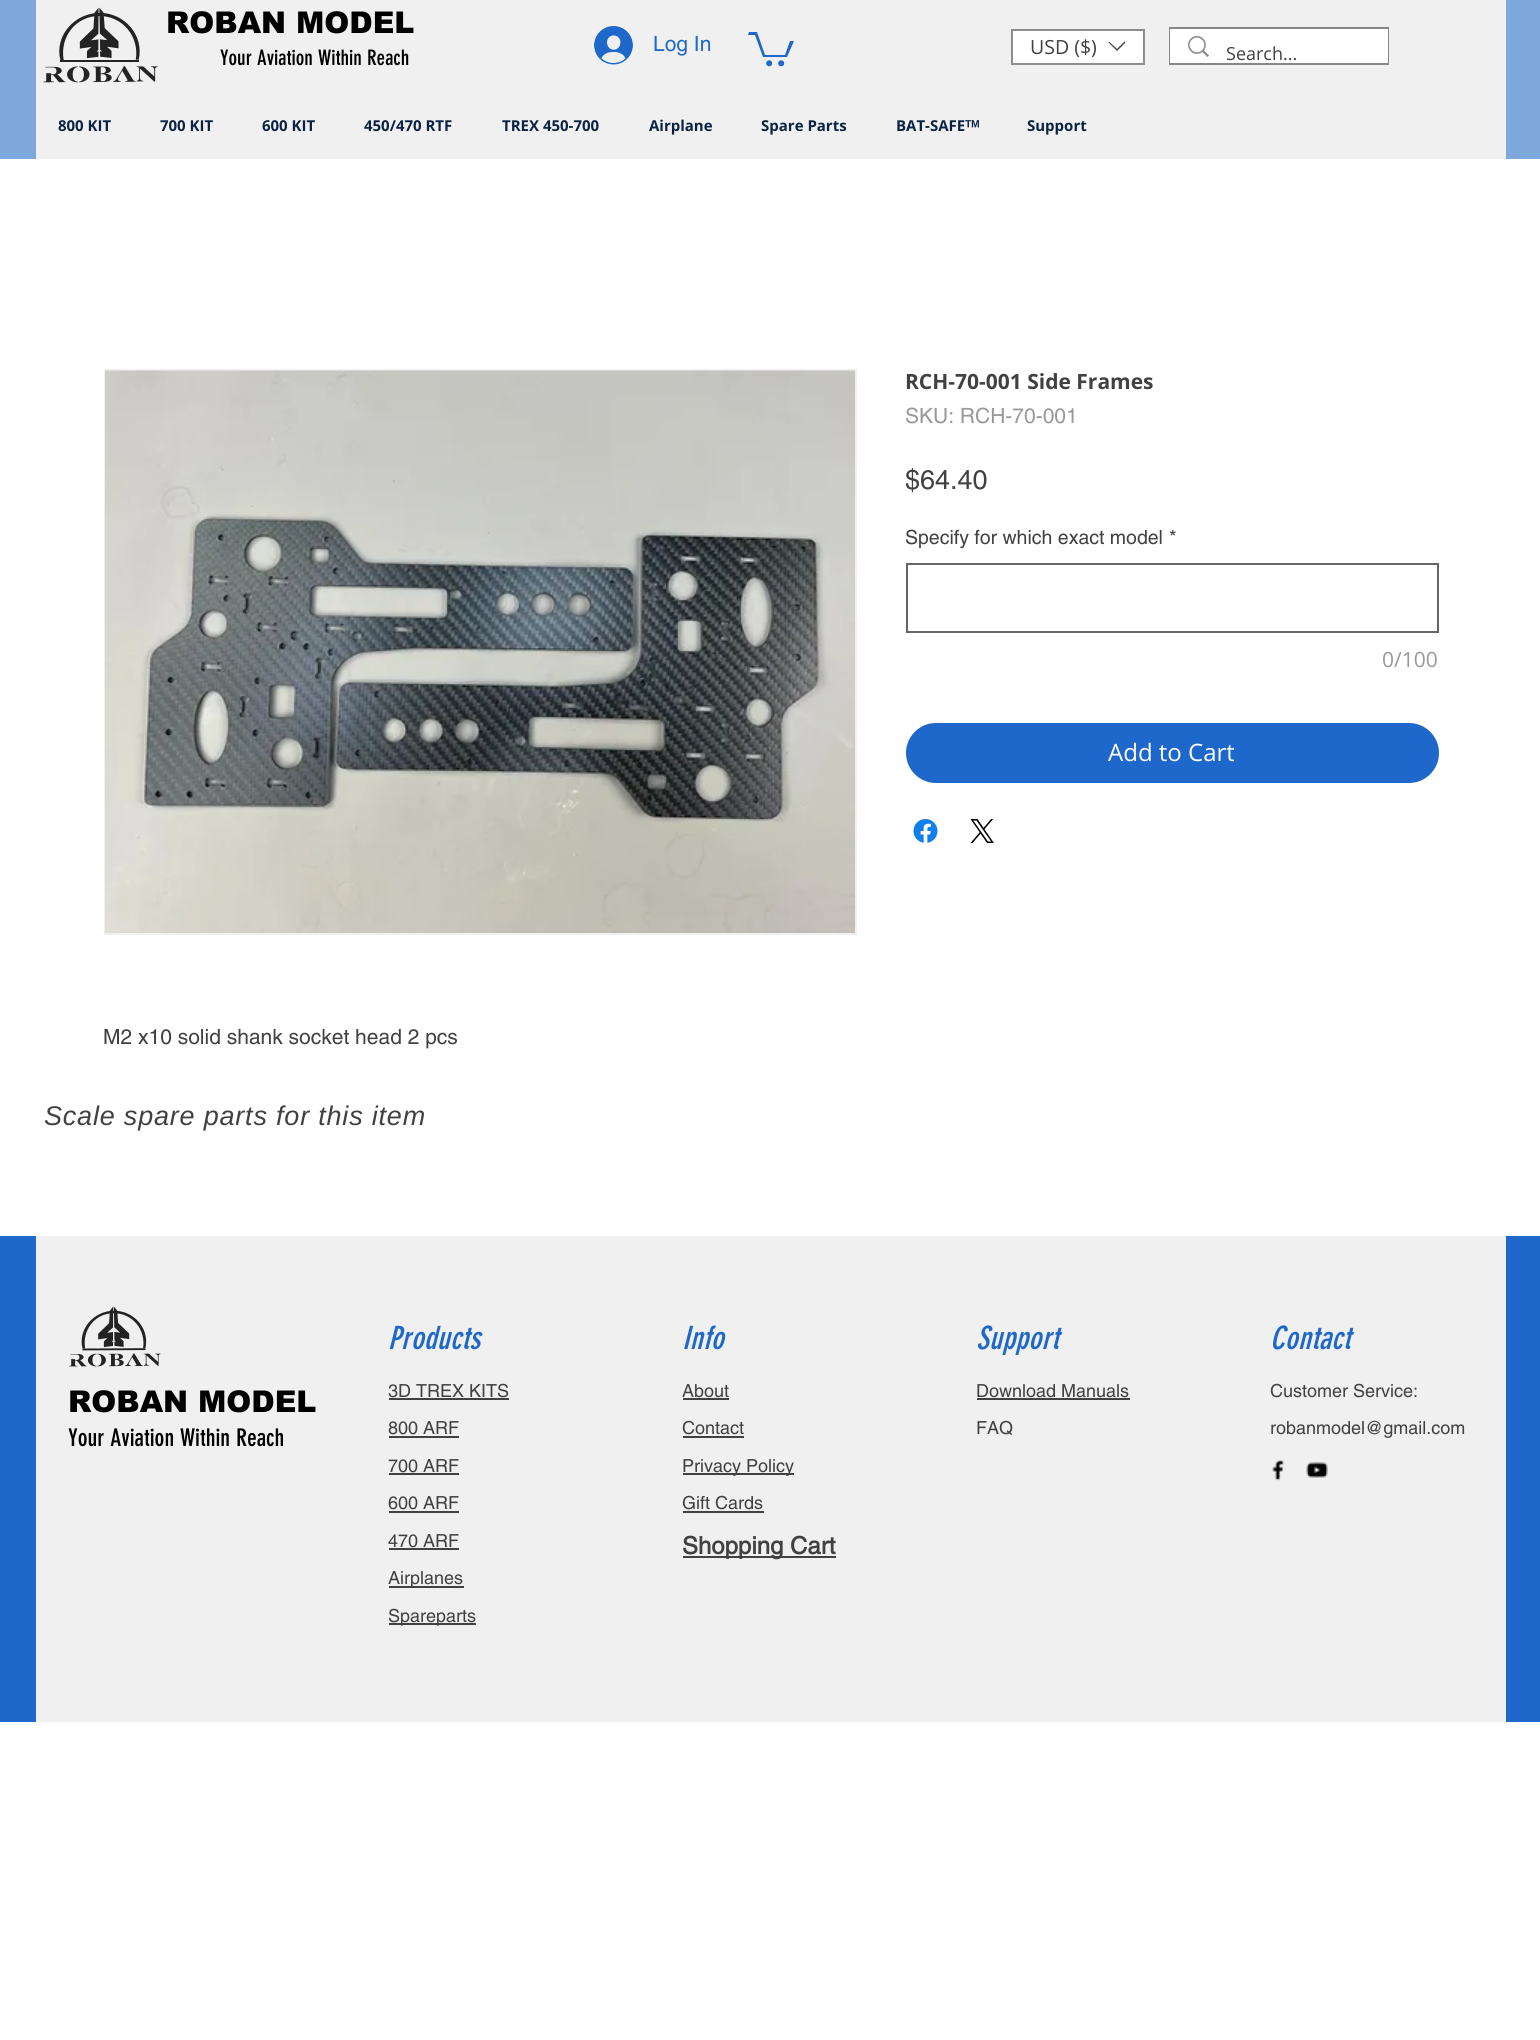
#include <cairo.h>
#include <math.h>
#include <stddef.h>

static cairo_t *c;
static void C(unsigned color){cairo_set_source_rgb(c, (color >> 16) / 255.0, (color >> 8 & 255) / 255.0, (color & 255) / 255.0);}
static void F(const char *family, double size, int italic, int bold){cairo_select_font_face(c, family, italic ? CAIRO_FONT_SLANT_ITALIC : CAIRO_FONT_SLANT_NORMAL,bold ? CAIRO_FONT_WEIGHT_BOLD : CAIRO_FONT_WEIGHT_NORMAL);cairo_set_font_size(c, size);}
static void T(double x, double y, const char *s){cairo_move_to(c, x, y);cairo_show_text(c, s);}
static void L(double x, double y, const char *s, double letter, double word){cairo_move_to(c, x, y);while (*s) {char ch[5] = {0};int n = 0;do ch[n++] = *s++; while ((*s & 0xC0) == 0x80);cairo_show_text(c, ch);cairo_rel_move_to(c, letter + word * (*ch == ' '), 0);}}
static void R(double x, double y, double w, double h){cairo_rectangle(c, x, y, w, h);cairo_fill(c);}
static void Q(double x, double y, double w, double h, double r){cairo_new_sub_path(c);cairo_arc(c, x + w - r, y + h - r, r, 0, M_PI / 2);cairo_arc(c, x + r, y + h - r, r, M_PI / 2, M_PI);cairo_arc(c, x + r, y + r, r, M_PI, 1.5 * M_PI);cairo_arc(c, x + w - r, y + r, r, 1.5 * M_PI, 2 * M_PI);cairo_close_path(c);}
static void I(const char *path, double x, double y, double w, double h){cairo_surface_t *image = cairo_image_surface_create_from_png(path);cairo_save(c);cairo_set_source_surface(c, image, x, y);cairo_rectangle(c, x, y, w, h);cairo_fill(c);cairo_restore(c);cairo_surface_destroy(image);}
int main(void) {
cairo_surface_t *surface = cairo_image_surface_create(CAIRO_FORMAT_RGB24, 1540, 2040);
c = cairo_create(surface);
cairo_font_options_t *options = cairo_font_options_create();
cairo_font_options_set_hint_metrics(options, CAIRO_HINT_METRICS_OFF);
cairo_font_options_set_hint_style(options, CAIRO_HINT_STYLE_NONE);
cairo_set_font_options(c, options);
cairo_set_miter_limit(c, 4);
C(0xffffff);
cairo_paint(c);
C(0x7ea7dc);
R(0,0,1540,159);
C(0xf0f0f0);
R(36,0,1470,159);
I("1.png",43,7,115,76);
F("arial Black",30,0,0);
C(0x000000);
T(166,33,"ROBAN MODEL");
F("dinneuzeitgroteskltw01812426",21,0,0);
T(220,65,"Your Aviation Within Reach");
I("2.png",594,26,39,39);
F("helvetica",21,0,0);
C(0x1e68cb);
T(653,51,"Log In");
cairo_new_path(c);
cairo_move_to(c,794,41);
cairo_line_to(c,787,57);
cairo_line_to(c,763,57);
cairo_line_to(c,755,35);
cairo_line_to(c,748,35);
cairo_line_to(c,749,32);
cairo_line_to(c,757,32);
cairo_line_to(c,765,55);
cairo_line_to(c,785,55);
cairo_line_to(c,790,41);
cairo_fill(c);
cairo_arc(c,781.2,63.3,3,0,2 * M_PI);
cairo_fill(c);
cairo_arc(c,769.2,63.3,3,0,2 * M_PI);
cairo_fill(c);
C(0xffffff);
cairo_rectangle(c,1012,30,132,34);
cairo_fill_preserve(c);
C(0x8d8d8d);
cairo_stroke(c);
F("Open Sans",19.5,0,0);
C(0x414141);
T(1030,54,"USD ($)");
cairo_set_fill_rule(c,CAIRO_FILL_RULE_EVEN_ODD);
cairo_new_path(c);
cairo_move_to(c,1124.5,41.5);
cairo_line_to(c,1125.5,42.5);
cairo_line_to(c,1117,51);
cairo_line_to(c,1108.5,42.5);
cairo_line_to(c,1109,41.5);
cairo_line_to(c,1117,49);
cairo_close_path(c);
cairo_fill(c);
cairo_rectangle(c,1170,28,218,36);
C(0x878787);
cairo_stroke(c);
C(0xffffff);
R(1170,29,218,34);
I("3.png",1188,36,21,21);
F("Open Sans",18,0,0);
C(0x414141);
T(1226,60,"Search...");
F("Open Sans",15,0,1);
C(0x0a2344);
T(58,131,"800 KIT");
T(160,131,"700 KIT");
T(262,131,"600 KIT");
T(364,131,"450/470 RTF");
T(502,131,"TREX 450-700");
T(649,131,"Airplane");
T(761,131,"Spare Parts");
T(896,131,"BAT-SAFE");
F("Liberation Sans",15,0,1);
T(965,131,"ᵀᴹ");
F("Open Sans",15,0,1);
T(1027,131,"Support");
F("Open Sans",21,0,1);
C(0x414141);
T(905,389,"RCH-70-001 Side Frames");
F("helvetica",21,0,0);
C(0x999997);
T(905,423,"SKU: RCH-70-001");
F("helvetica",27,0,0);
C(0x414141);
T(905,489,"$64.40");
F("helvetica",19.5,0,0);
T(905,544,"Specify for which exact model");
T(1169,544,"*");
cairo_rectangle(c,907,564,531,68);
C(0x666666);
cairo_stroke(c);
F("Open Sans",21,0,0);
C(0x999997);
T(1382,667,"0/100");
C(0x1e68cb);
Q(906,723,533,60,30);
cairo_fill(c);
F("Open Sans",24,0,0);
C(0xffffff);
T(1108,761,"Add to Cart");
I("4.png",913,819,25,24);
I("5.png",970,819,24,24);
cairo_rectangle(c,105,370,751,564);
C(0xf0f0f0);
cairo_stroke(c);
I("6.png",105,370,750,563);
F("helvetica",21,0,0);
C(0x414141);
T(103,1044,"M2 x10 solid shank socket head 2 pcs");
F("Liberation Sans",27,1,0);
L(44,1125,"Scale spare parts for this item",.8,0);
C(0x1e68cb);
R(0,1236,1540,486);
C(0xf0f0f0);
R(36,1236,1470,486);
I("7.png",69,1306,92,61);
F("arial Black",30,0,0);
C(0x000000);
T(68,1412,"ROBAN MODEL");
F("dinneuzeitgroteskltw01812426",24,0,0);
T(68,1446,"Your Aviation Within Reach");
F("dinneuzeitgroteskltw01812426",31.5,1,0);
C(0x1e68cb);
L(388,1349,"Products",.25,0);
F("helvetica",18,0,0);
C(0x414141);
T(388,1397,"3D TREX KITS");
R(389,1398,120,2);
T(388,1434,"800 ARF");
R(389,1436,70,2);
T(388,1472,"700 ARF");
R(389,1473,70,2);
T(388,1509,"600 ARF");
R(389,1511,70,2);
T(388,1547,"470 ARF");
R(389,1548,70,2);
R(389,1586,75,2);
T(388,1584,"Airplanes");
R(389,1623,87,2);
T(388,1622,"Spareparts");
F("dinneuzeitgroteskltw01812426",31.5,1,0);
C(0x1e68cb);
L(682,1349,"Info",.25,0);
F("helvetica",18,0,0);
C(0x414141);
T(682,1397,"About");
R(683,1398,46,2);
T(682,1434,"Contact");
R(683,1436,61,2);
R(683,1473,111,2);
T(682,1472,"Privacy Policy");
T(682,1509,"Gift Cards");
R(683,1511,81,2);
R(683,1556,153,2);
F("helvetica",24,0,1);
T(682,1554,"Shopping Cart");
F("dinneuzeitgroteskltw01812426",31.5,1,0);
C(0x1e68cb);
L(976,1349,"Support",.25,0);
F("helvetica",18,0,0);
C(0x414141);
T(976,1397,"Download Manuals");
R(977,1398,153,2);
T(976,1434,"FAQ");
F("dinneuzeitgroteskltw01812426",31.5,1,0);
C(0x1e68cb);
L(1270,1349,"Contact",.25,0);
F("helvetica",18,0,0);
C(0x414141);
T(1270,1397,"Customer Service:");
T(1270,1434,"robanmodel@gmail.com");
I("8.png",1272,1460,13,21);
I("9.png",1306,1462,22,16);
cairo_surface_write_to_png(surface, "o.png");
cairo_font_options_destroy(options);
cairo_destroy(c);
cairo_surface_destroy(surface);
return 0;
}
